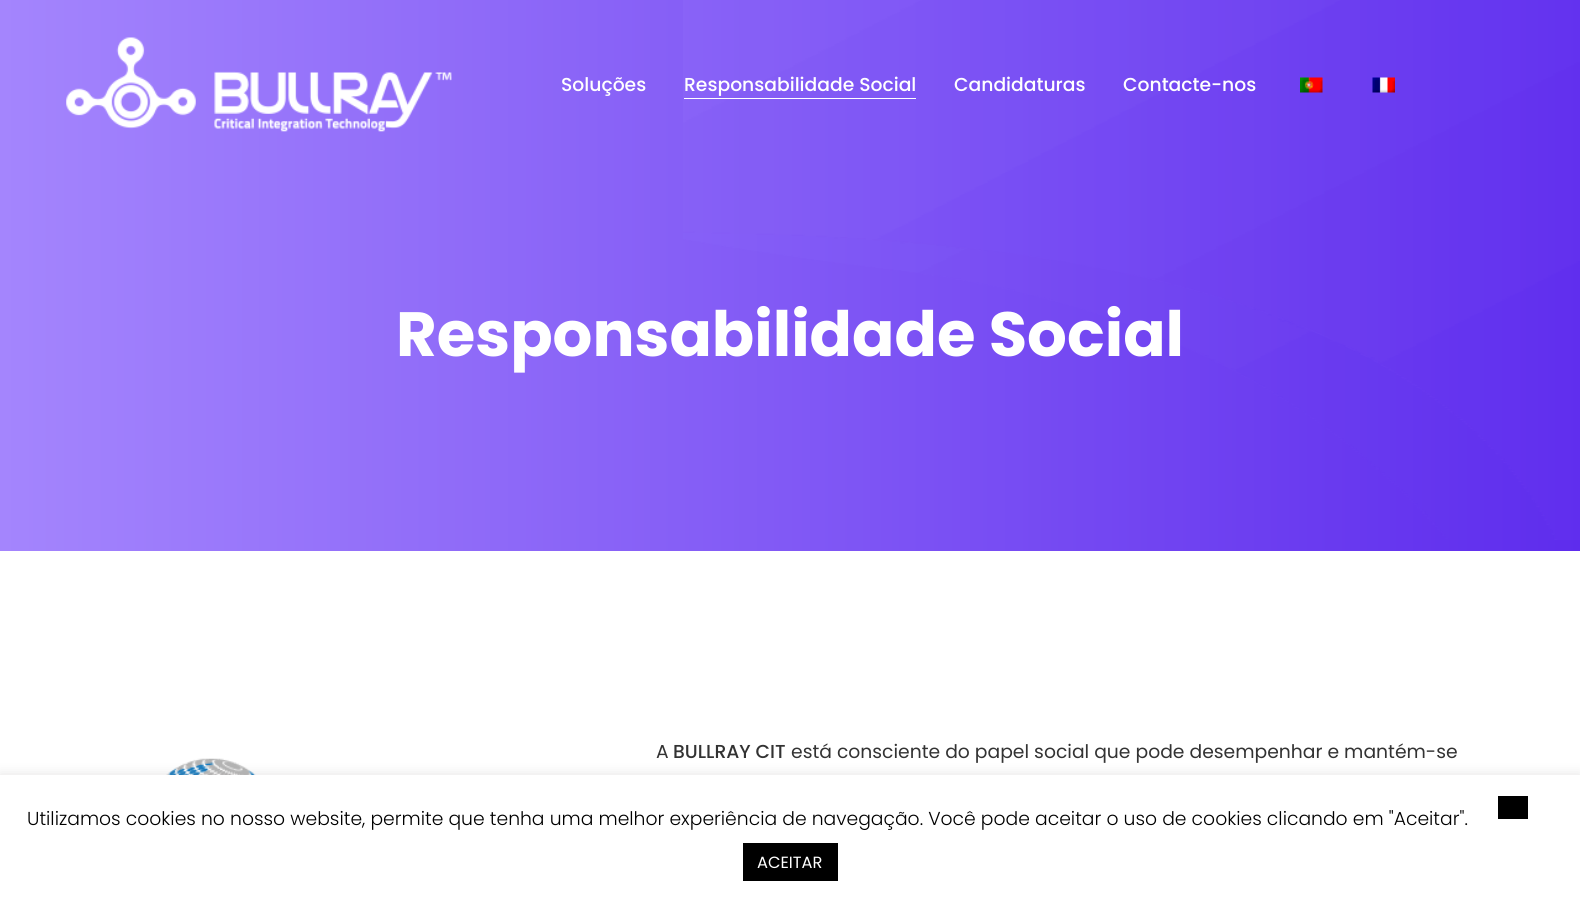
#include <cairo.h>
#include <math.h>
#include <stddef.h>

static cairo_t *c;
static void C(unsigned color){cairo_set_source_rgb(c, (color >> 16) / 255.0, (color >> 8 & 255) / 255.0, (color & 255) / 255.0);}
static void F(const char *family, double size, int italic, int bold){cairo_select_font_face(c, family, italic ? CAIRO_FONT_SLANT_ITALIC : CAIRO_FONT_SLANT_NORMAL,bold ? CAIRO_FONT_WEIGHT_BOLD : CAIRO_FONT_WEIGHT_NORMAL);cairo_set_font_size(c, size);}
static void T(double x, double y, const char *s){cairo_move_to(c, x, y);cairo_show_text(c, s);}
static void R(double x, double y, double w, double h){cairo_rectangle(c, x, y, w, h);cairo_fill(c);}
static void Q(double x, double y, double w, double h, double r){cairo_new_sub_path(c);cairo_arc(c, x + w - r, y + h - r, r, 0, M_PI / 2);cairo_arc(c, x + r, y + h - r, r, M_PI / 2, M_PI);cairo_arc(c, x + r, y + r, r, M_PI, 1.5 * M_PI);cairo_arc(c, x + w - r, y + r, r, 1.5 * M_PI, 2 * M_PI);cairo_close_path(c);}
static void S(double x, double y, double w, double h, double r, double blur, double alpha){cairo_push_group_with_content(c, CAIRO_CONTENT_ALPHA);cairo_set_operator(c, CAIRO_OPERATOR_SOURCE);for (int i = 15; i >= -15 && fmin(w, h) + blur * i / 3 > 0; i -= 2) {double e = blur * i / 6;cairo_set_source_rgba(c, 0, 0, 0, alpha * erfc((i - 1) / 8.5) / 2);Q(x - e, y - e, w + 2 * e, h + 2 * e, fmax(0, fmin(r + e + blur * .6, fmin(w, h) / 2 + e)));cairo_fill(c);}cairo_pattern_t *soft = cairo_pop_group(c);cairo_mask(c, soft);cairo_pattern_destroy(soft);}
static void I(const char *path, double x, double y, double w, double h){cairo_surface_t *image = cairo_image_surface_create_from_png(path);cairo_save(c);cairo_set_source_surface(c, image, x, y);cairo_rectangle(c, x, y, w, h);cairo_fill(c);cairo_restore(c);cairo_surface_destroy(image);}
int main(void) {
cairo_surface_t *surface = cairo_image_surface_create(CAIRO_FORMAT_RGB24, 1580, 902);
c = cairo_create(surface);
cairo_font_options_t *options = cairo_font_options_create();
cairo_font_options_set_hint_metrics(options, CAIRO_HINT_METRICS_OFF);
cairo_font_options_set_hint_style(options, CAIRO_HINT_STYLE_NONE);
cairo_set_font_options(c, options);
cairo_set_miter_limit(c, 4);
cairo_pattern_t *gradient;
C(0xffffff);
cairo_paint(c);
gradient = cairo_pattern_create_linear(1580,276,0,276);
cairo_pattern_add_color_stop_rgba(gradient,0,0.369,0.173,0.929,1);
cairo_pattern_add_color_stop_rgba(gradient,1,0.643,0.522,0.992,1);
cairo_set_source(c,gradient);
cairo_pattern_destroy(gradient);
R(0,0,1580,551);
I("1.png",66,37,386,95);
F("Poppins Medium",18.75,0,0);
C(0xffffff);
T(561,91,"Soluções");
I("4.png",683,0,897,540);
T(684,91,"Responsabilidade Social");
R(684,98,232,1);
T(954,91,"Candidaturas");
T(1123,91,"Contacte-nos");
I("2.png",1300,77,23,16);
I("3.png",1372,77,23,16);
F("Poppins",62.5,0,1);
T(396,356,"Responsabilidade Social");
F("Poppins",18.75,0,0);
C(0x333333);
T(656,758,"A");
F("Poppins Medium",18.75,0,0);
T(673,758,"BULLRAY CIT");
F("Poppins",18.75,0,0);
T(791,758,"está consciente do papel social que pode desempenhar e mantém-se");
I("5.png",166,758,90,17);
C(0xacabab);
S(0,774,1580,127,0,6,.3);
C(0xffffff);
R(0,775,1580,127);
F("Poppins Light",18.75,0,0);
C(0x000000);
T(27,825,"Utilizamos cookies no nosso website, permite que tenha uma melhor experiência de navegação. Você pode aceitar o uso de cookies clicando em \"Aceitar\".");
R(1498,796,30,23);
R(743,843,95,38);
F("Poppins",16.25,0,0);
C(0xffffff);
T(757,868,"ACEITAR");
cairo_surface_write_to_png(surface, "o.png");
cairo_font_options_destroy(options);
cairo_destroy(c);
cairo_surface_destroy(surface);
return 0;
}
